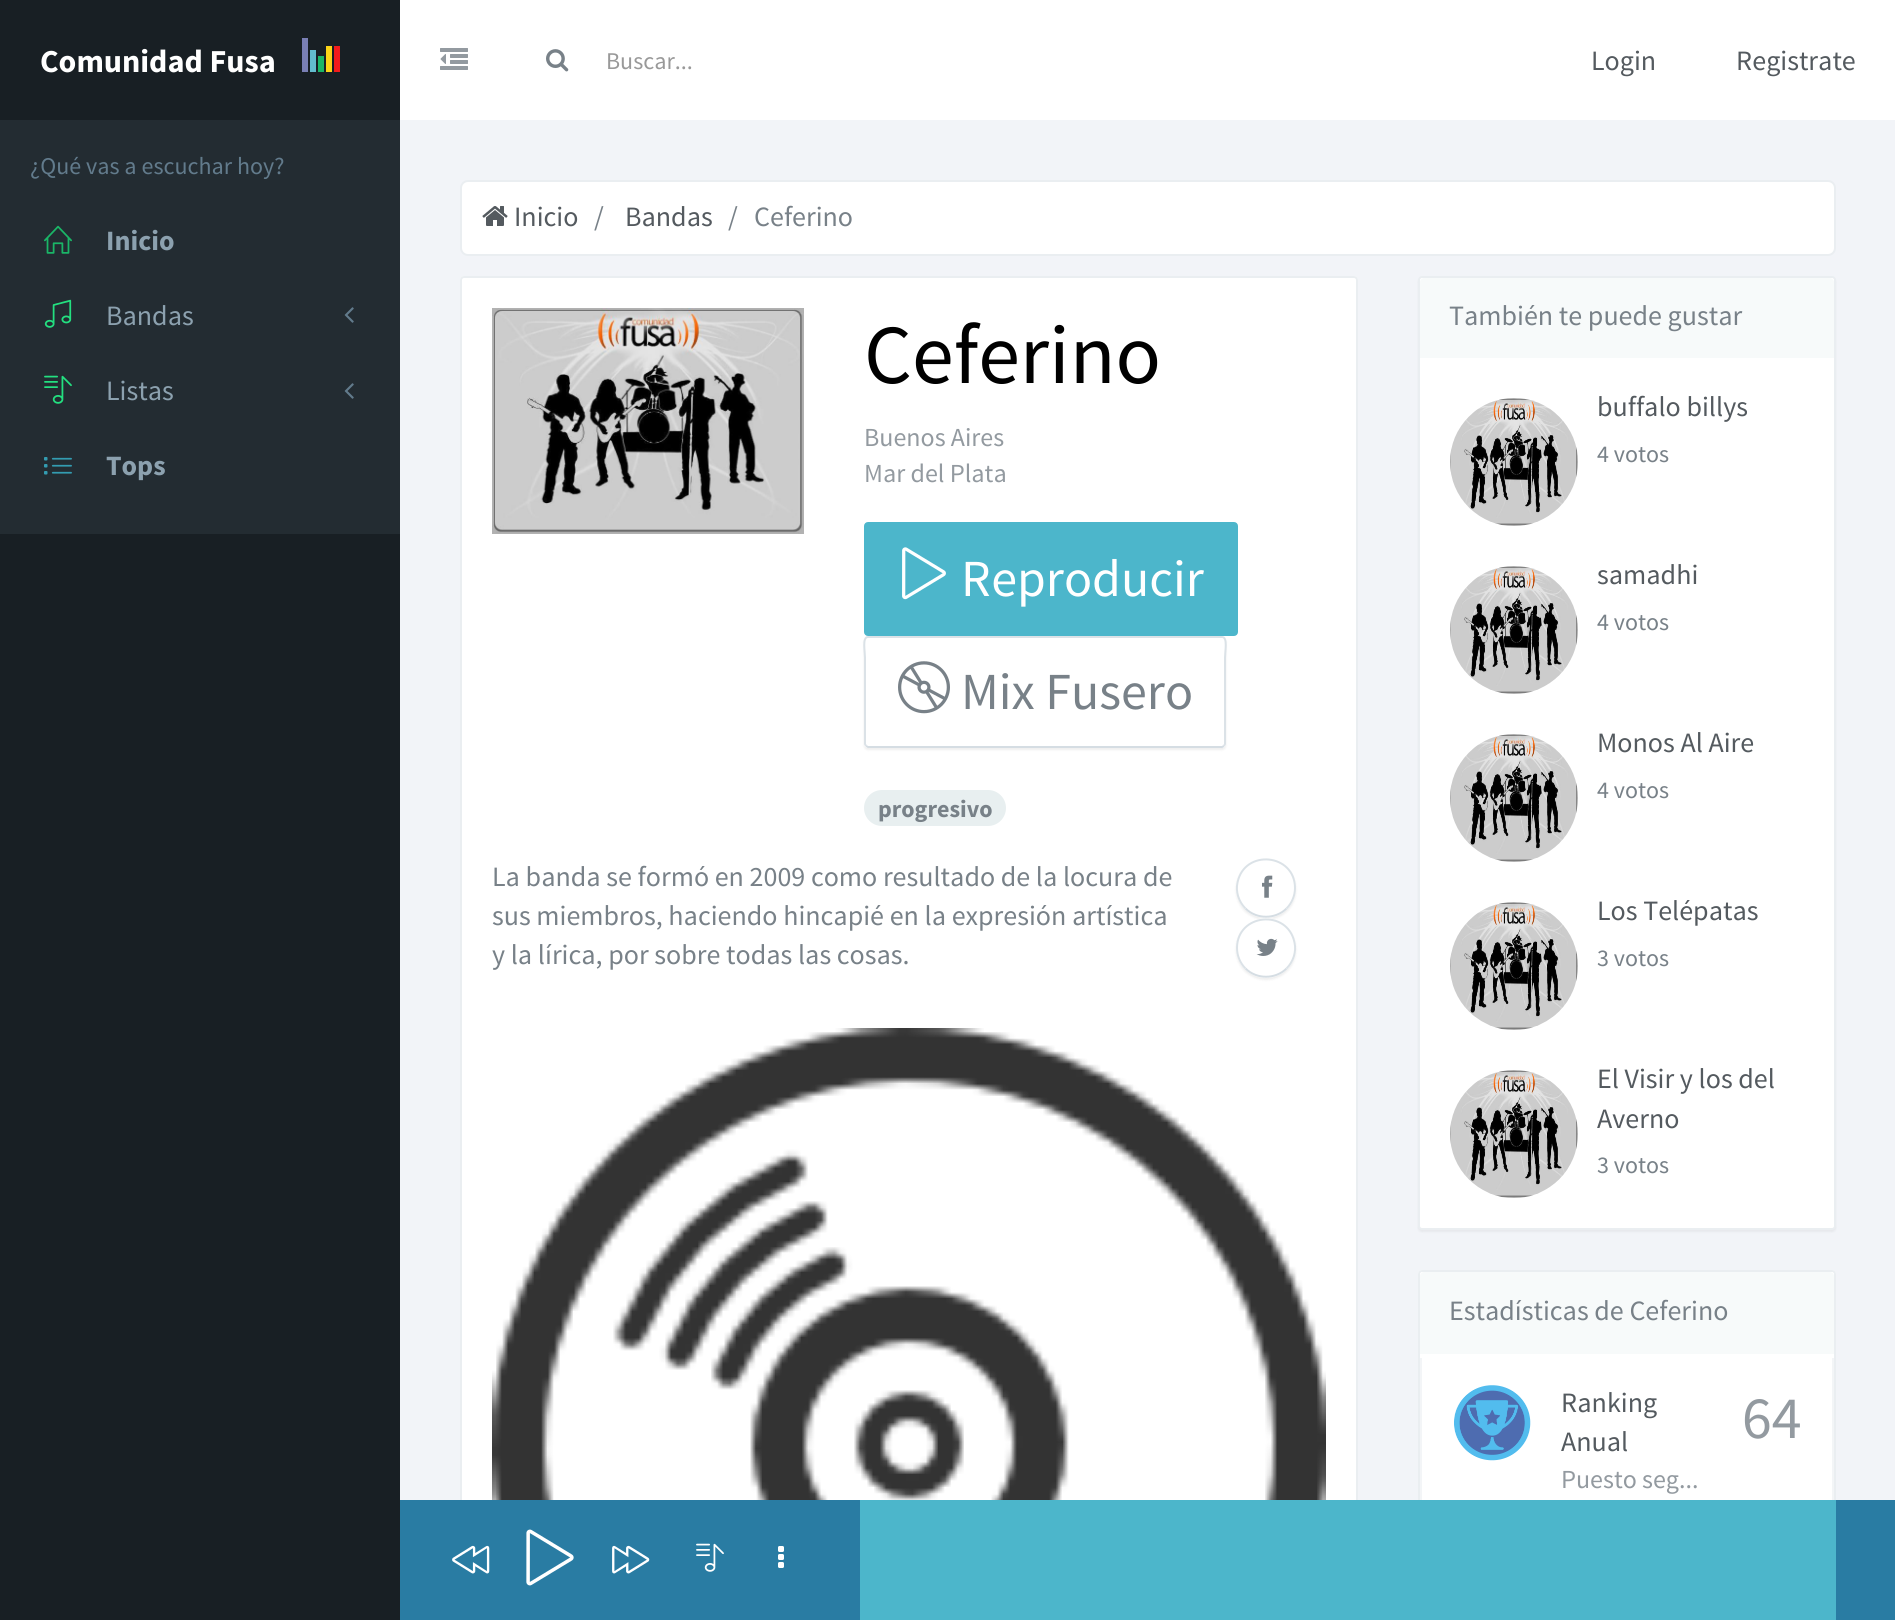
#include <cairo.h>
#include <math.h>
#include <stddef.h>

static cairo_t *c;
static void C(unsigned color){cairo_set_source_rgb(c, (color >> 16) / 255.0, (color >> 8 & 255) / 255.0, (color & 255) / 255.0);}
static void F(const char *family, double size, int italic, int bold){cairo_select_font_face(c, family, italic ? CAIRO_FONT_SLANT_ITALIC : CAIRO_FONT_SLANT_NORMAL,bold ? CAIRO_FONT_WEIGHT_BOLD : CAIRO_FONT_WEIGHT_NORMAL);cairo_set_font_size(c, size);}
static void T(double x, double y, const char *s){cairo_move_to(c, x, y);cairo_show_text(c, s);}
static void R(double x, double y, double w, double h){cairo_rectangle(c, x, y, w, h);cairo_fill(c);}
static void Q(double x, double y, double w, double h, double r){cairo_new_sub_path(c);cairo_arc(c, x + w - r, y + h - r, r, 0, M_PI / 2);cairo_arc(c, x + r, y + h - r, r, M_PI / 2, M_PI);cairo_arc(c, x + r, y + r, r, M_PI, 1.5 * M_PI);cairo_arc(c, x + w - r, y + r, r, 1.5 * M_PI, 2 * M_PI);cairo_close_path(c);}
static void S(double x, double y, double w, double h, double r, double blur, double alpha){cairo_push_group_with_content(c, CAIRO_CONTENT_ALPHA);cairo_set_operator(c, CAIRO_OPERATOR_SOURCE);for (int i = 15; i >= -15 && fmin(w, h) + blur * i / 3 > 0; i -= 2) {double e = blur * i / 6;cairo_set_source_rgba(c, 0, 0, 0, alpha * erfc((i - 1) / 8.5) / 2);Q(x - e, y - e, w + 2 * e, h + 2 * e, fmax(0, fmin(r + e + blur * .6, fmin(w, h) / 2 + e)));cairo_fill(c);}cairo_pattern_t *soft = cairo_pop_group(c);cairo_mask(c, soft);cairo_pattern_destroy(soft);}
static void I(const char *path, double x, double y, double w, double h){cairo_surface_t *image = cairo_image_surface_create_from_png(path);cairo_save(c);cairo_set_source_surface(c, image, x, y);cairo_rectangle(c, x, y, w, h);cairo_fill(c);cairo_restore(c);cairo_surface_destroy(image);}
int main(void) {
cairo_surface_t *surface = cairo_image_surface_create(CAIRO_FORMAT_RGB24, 1895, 1620);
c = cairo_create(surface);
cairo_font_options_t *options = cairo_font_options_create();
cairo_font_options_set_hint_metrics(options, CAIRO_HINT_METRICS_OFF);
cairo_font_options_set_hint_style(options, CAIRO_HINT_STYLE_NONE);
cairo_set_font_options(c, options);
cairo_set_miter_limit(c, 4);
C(0xf2f4f8);
cairo_paint(c);
C(0xffffff);
R(400,0,1495,120);
C(0x181f24);
R(0,0,400,120);
F("Source Sans Pro",32,0,1);
C(0xffffff);
T(40,72,"Comunidad Fusa");
C(0x797fb4);
R(302,38,6,34);
C(0x62bcce);
R(310,50,6,22);
C(0x1ab667);
R(318,56,6,16);
C(0xfcd417);
R(326,46,6,26);
C(0xf21b1b);
R(334,46,6,26);
I("1.png",440,48,28,22);
I("2.png",546,49,23,23);
F("Source Sans Pro",24,0,0);
C(0x999999);
T(606,69,"Buscar...");
F("Source Sans Pro",28,0,0);
C(0x545a5f);
T(1591,70,"Login");
T(1736,70,"Registrate");
C(0x181f24);
R(0,534,400,1086);
C(0x232c32);
R(0,120,400,414);
F("Source Sans Pro",24,0,0);
C(0x627b8c);
T(30,174,"¿Qué vas a escuchar hoy?");
I("3.png",44,225,28,29);
F("Source Sans Pro",28,0,1);
C(0x8ca1af);
T(106,250,"Inicio");
I("4.png",44,299,28,29);
F("Source Sans Pro",28,0,0);
T(106,325,"Bandas");
I("5.png",344,307,10,16);
I("6.png",44,375,28,29);
T(106,400,"Listas");
I("5.png",344,383,10,16);
I("7.png",44,457,28,18);
F("Source Sans Pro",28,0,1);
T(106,475,"Tops");
C(0xffffff);
Q(461,181,1374,74,7);
cairo_fill_preserve(c);
C(0xeaeef1);
cairo_stroke(c);
I("8.png",482,206,26,20);
F("Source Sans Pro",28,0,0);
C(0x545a5f);
T(514,226,"Inicio");
C(0x788188);
T(594,226,"/");
C(0x545a5f);
T(625,226,"Bandas");
C(0x788188);
T(728,226,"/");
T(754,226,"Ceferino");
C(0xffffff);
cairo_new_path(c);
cairo_move_to(c,464,276);
cairo_line_to(c,1354,276);
cairo_curve_to(c,1356,276,1358,278,1358,280);
cairo_line_to(c,1358,1500);
cairo_line_to(c,460,1500);
cairo_line_to(c,460,280);
cairo_curve_to(c,460,278,462,276,464,276);
cairo_close_path(c);
cairo_fill(c);
Q(461,277,896,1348,3);
C(0xeaeef1);
cairo_stroke(c);
I("9.png",492,308,312,226);
F("Source Sans Pro",84,0,0);
C(0x000000);
T(864,383,"Ceferino");
F("Source Sans Pro",26,0,0);
C(0x939aa0);
T(864,446,"Buenos Aires");
T(864,482,"Mar del Plata");
C(0x4cb6cb);
Q(865,523,372,112,3);
cairo_fill_preserve(c);
cairo_stroke(c);
I("10.png",902,547,44,53);
F("Source Sans Pro",52,0,0);
C(0xffffff);
T(961,596,"Reproducir");
C(0x5a5a5a);
S(864,638,362,112,4,1,.1);
C(0xffffff);
Q(864,636,362,112,4);
cairo_fill(c);
cairo_new_path(c);
cairo_move_to(c,1224,746);
cairo_line_to(c,1222,747);
cairo_line_to(c,868,747);
cairo_line_to(c,866,746);
C(0xd5dde3);
cairo_stroke(c);
cairo_new_path(c);
cairo_move_to(c,866,746);
cairo_line_to(c,865,744);
cairo_line_to(c,865,657.5);
cairo_curve_to(c,865,651.5,862,637,868,637);
cairo_line_to(c,1222,637);
cairo_curve_to(c,1228,637,1225,651.5,1225,657.5);
cairo_line_to(c,1225,744);
cairo_line_to(c,1224,746);
C(0xdbe2e7);
cairo_stroke(c);
I("11.png",898,661,52,53);
C(0x788188);
T(961,709,"Mix Fusero");
C(0xe8eff0);
Q(864,790,142,36,18);
cairo_fill(c);
F("Source Sans Pro",24,0,1);
C(0x788188);
T(878,817,"progresivo");
F("Source Sans Pro",28,0,0);
T(492,886,"La banda se formó en 2009 como resultado de la locura de");
T(492,925,"sus miembros, haciendo hincapié en la expresión artística");
T(492,964,"y la lírica, por sobre todas las cosas.");
C(0x5a5a5a);
S(1236,860,60,60,30,1,.1);
C(0xffffff);
cairo_arc(c,1266,888,30,0,2 * M_PI);
cairo_fill(c);
cairo_new_path(c);
cairo_move_to(c,1286.5,908.5);
cairo_curve_to(c,1275.5,919.5,1256.5,919.5,1245.5,908.5);
C(0xd5dde3);
cairo_stroke(c);
cairo_new_path(c);
cairo_move_to(c,1245.5,908.5);
cairo_curve_to(c,1238.5,901.5,1235.5,891.5,1237.5,882.5);
cairo_curve_to(c,1244.5,848.5,1295,853.5,1295,888);
cairo_curve_to(c,1295,895.5,1292,903,1286.5,908.5);
C(0xdbe2e7);
cairo_stroke(c);
I("12.png",1262,875,11,23);
C(0x5a5a5a);
S(1236,920,60,60,30,1,.1);
C(0xffffff);
cairo_arc(c,1266,948,30,0,2 * M_PI);
cairo_fill(c);
cairo_new_path(c);
cairo_move_to(c,1286.5,968.5);
cairo_curve_to(c,1275.5,979.5,1256.5,979.5,1245.5,968.5);
C(0xd5dde3);
cairo_stroke(c);
cairo_new_path(c);
cairo_move_to(c,1245.5,968.5);
cairo_curve_to(c,1240,963,1237,955.5,1237,948);
cairo_curve_to(c,1237,913.5,1287.5,908.5,1294.5,942.5);
cairo_curve_to(c,1296.5,951.5,1293.5,961.5,1286.5,968.5);
C(0xdbe2e7);
cairo_stroke(c);
I("13.png",1256,938,22,18);
I("14.png",492,1028,834,472);
C(0x000000);
S(1418,278,418,954,4,1,.05);
C(0xffffff);
Q(1419,277,416,952,3);
cairo_fill_preserve(c);
C(0xeaeef1);
cairo_stroke(c);
C(0xf7fafa);
cairo_new_path(c);
cairo_move_to(c,1424,278);
cairo_line_to(c,1830,278);
cairo_curve_to(c,1832,278,1834,280,1834,282);
cairo_line_to(c,1834,358);
cairo_line_to(c,1420,358);
cairo_line_to(c,1420,282);
cairo_curve_to(c,1420,280,1422,278,1424,278);
cairo_close_path(c);
cairo_fill(c);
C(0x788188);
T(1449,325,"También te puede gustar");
I("15.png",1450,398,128,128);
C(0x545a5f);
T(1597,416,"buffalo billys");
F("Source Sans Pro",24,0,0);
C(0x788188);
T(1597,462,"4 votos");
I("16.png",1450,566,128,128);
F("Source Sans Pro",28,0,0);
C(0x545a5f);
T(1597,584,"samadhi");
F("Source Sans Pro",24,0,0);
C(0x788188);
T(1597,630,"4 votos");
I("17.png",1450,734,128,128);
F("Source Sans Pro",28,0,0);
C(0x545a5f);
T(1597,752,"Monos Al Aire");
F("Source Sans Pro",24,0,0);
C(0x788188);
T(1597,798,"4 votos");
I("18.png",1450,902,128,128);
F("Source Sans Pro",28,0,0);
C(0x545a5f);
T(1597,920,"Los Telépatas");
F("Source Sans Pro",24,0,0);
C(0x788188);
T(1597,966,"3 votos");
I("16.png",1450,1070,128,128);
F("Source Sans Pro",28,0,0);
C(0x545a5f);
T(1597,1088,"El Visir y los del");
T(1597,1128,"Averno");
F("Source Sans Pro",24,0,0);
C(0x788188);
T(1597,1173,"3 votos");
C(0xffffff);
cairo_new_path(c);
cairo_move_to(c,1422,1270);
cairo_line_to(c,1832,1270);
cairo_curve_to(c,1834,1270,1836,1272,1836,1274);
cairo_line_to(c,1836,1500);
cairo_line_to(c,1418,1500);
cairo_line_to(c,1418,1274);
cairo_curve_to(c,1418,1272,1420,1270,1422,1270);
cairo_close_path(c);
cairo_fill(c);
Q(1419,1271,416,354,3);
C(0xeaeef1);
cairo_stroke(c);
C(0xf7fafa);
cairo_new_path(c);
cairo_move_to(c,1424,1272);
cairo_line_to(c,1830,1272);
cairo_curve_to(c,1832,1272,1834,1274,1834,1276);
cairo_line_to(c,1834,1354);
cairo_line_to(c,1420,1354);
cairo_line_to(c,1420,1276);
cairo_curve_to(c,1420,1274,1422,1272,1424,1272);
cairo_close_path(c);
cairo_fill(c);
F("Source Sans Pro",28,0,0);
C(0x788188);
T(1449,1320,"Estadísticas de Ceferino");
C(0xf3f5f7);
R(1832,1358,2,142);
R(1420,1358,2,142);
I("19.png",1454,1385,77,76);
C(0x545a5f);
T(1561,1412,"Ranking");
T(1561,1451,"Anual");
F("Source Sans Pro",26,0,0);
C(0x939aa0);
T(1561,1488,"Puesto seg...");
F("Source Sans Pro",60,0,0);
T(1742,1438,"64");
C(0x297ca3);
R(400,1500,1495,120);
I("20.png",452,1545,38,29);
I("21.png",526,1529,48,57);
I("22.png",612,1545,38,29);
I("23.png",696,1543,28,29);
I("24.png",778,1546,6,22);
C(0x4cb6cb);
R(860,1500,976,120);
cairo_surface_write_to_png(surface, "o.png");
cairo_font_options_destroy(options);
cairo_destroy(c);
cairo_surface_destroy(surface);
return 0;
}
